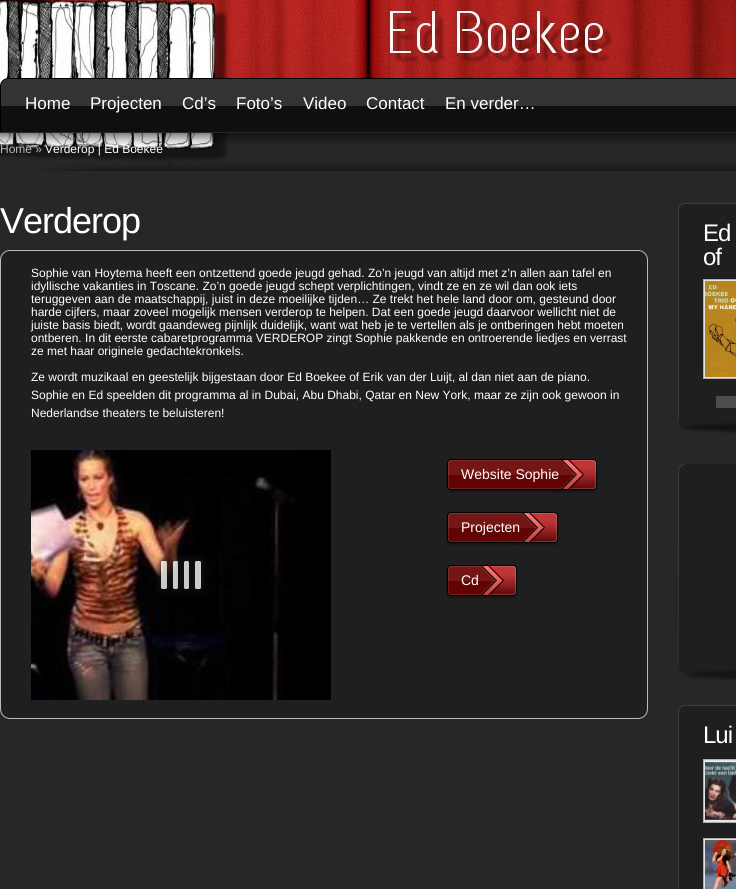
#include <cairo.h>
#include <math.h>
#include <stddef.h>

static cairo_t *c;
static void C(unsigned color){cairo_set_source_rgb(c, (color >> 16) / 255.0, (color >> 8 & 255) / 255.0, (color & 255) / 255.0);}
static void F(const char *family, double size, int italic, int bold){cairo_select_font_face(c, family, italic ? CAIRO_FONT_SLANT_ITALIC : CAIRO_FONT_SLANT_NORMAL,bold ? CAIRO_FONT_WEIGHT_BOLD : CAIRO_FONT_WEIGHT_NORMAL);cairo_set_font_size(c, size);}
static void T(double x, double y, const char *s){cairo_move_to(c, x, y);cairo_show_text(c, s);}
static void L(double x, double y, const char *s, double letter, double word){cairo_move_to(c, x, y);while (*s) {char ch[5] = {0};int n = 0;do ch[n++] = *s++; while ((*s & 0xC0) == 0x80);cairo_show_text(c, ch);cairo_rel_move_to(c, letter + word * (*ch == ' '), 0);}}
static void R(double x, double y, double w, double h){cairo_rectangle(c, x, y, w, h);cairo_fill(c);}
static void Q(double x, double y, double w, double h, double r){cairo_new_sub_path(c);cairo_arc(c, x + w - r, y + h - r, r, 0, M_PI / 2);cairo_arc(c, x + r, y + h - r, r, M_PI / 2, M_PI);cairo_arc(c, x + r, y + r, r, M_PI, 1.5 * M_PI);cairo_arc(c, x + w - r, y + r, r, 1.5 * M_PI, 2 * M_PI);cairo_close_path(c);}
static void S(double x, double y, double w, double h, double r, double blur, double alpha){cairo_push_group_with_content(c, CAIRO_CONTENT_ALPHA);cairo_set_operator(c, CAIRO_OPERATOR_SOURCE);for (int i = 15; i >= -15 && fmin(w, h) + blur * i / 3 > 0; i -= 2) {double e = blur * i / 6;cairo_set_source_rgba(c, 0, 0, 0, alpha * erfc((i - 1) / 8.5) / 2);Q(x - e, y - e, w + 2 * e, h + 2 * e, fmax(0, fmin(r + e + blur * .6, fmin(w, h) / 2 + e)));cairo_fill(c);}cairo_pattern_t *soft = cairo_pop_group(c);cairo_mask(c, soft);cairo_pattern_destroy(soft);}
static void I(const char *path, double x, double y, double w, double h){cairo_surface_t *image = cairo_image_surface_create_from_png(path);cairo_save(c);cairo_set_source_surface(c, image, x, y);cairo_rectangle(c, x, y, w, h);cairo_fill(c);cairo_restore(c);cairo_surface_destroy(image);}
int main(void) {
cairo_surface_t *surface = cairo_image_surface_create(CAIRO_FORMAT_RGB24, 736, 889);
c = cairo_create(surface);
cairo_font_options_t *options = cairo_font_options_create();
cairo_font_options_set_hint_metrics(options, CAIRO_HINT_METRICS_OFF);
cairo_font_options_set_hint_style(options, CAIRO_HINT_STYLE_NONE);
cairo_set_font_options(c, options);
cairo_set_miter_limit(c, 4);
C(0xffffff);
cairo_paint(c);
I("1.png",0,0,736,889);
I("2.png",0,78,736,67);
F("Liberation Sans",17,0,0);
C(0xffffff);
T(25,109,"Home");
T(90,109,"Projecten");
T(182,109,"Cd’s");
T(236,109,"Foto’s");
T(303,109,"Video");
T(366,109,"Contact");
T(445,109,"En verder…");
I("3.png",41,162,695,9);
F("Liberation Sans",12,0,0);
C(0xb9b9b9);
T(0,153,"Home »");
C(0xffffff);
T(45,153,"Verderop | Ed Boekee");
F("Liberation Sans",36,0,0);
L(0,233,"Verderop",-1,0);
I("4.png",0,250,648,469);
Q(.5,250.5,647,468,9.5);
C(0xbababa);
cairo_set_line_width(c,1);
cairo_stroke(c);
F("Liberation Sans",12,0,0);
C(0xffffff);
T(31,277,"Sophie van Hoytema heeft een ontzettend goede jeugd gehad. Zo’n jeugd van altijd met z’n allen aan tafel en");
T(31,290,"idyllische vakanties in Toscane. Zo’n goede jeugd schept verplichtingen, vindt ze en ze wil dan ook iets");
T(31,303,"teruggeven aan de maatschappij, juist in deze moeilijke tijden… Ze trekt het hele land door om, gesteund door");
T(31,316,"harde cijfers, maar zoveel mogelijk mensen verderop te helpen. Dat een goede jeugd daarvoor wellicht niet de");
T(31,329,"juiste basis biedt, wordt gaandeweg pijnlijk duidelijk, want wat heb je te vertellen als je ontberingen hebt moeten");
T(31,342,"ontberen. In dit eerste cabaretprogramma VERDEROP zingt Sophie pakkende en ontroerende liedjes en verrast");
T(31,355,"ze met haar originele gedachtekronkels.");
T(31,381,"Ze wordt muzikaal en geestelijk bijgestaan door Ed Boekee of Erik van der Luijt, al dan niet aan de piano.");
T(31,399,"Sophie en Ed speelden dit programma al in Dubai, Abu Dhabi, Qatar en New York, maar ze zijn ook gewoon in");
T(31,417,"Nederlandse theaters te beluisteren!");
C(0x000000);
R(296,450,35,250);
I("5.png",31,450,265,250);
cairo_save(c);
cairo_set_fill_rule(c,CAIRO_FILL_RULE_EVEN_ODD);
cairo_new_path(c);
cairo_move_to(c,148,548);
cairo_line_to(c,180,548);
cairo_line_to(c,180,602);
cairo_line_to(c,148,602);
cairo_close_path(c);
cairo_move_to(c,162.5,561);
cairo_line_to(c,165.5,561);
cairo_curve_to(c,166.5,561,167,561.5,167,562.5);
cairo_line_to(c,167,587.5);
cairo_curve_to(c,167,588.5,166.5,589,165.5,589);
cairo_line_to(c,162.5,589);
cairo_curve_to(c,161.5,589,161,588.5,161,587.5);
cairo_line_to(c,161,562.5);
cairo_curve_to(c,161,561.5,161.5,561,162.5,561);
cairo_close_path(c);
cairo_clip(c);
C(0x222222);
S(161,561,6,28,1.5,4,.8);
cairo_restore(c);
cairo_set_source_rgba(c,1,1,1,0.8);
Q(161,561,6,28,1.5);
cairo_fill(c);
cairo_save(c);
cairo_set_fill_rule(c,CAIRO_FILL_RULE_EVEN_ODD);
cairo_new_path(c);
cairo_move_to(c,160,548);
cairo_line_to(c,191,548);
cairo_line_to(c,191,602);
cairo_line_to(c,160,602);
cairo_close_path(c);
cairo_move_to(c,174.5,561);
cairo_line_to(c,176.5,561);
cairo_curve_to(c,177.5,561,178,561.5,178,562.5);
cairo_line_to(c,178,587.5);
cairo_curve_to(c,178,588.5,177.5,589,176.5,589);
cairo_line_to(c,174.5,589);
cairo_curve_to(c,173.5,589,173,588.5,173,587.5);
cairo_line_to(c,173,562.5);
cairo_curve_to(c,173,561.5,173.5,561,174.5,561);
cairo_close_path(c);
cairo_clip(c);
C(0x222222);
S(173,561,5,28,1.5,4,.8);
cairo_restore(c);
Q(173,561,5,28,1.5);
cairo_fill(c);
C(0x222222);
S(184,561,5,28,1.5,4,.8);
C(0xcccccc);
Q(184,561,5,28,1.5);
cairo_fill(c);
C(0x222222);
S(195,561,6,28,1.5,4,.8);
C(0xcccccc);
Q(195,561,6,28,1.5);
cairo_fill(c);
I("6.png",557,459,41,34);
I("7.png",446,459,113,34);
F("Liberation Sans",14,0,0);
C(0xffffff);
T(461,479,"Website Sophie");
I("6.png",518,512,41,34);
I("8.png",446,512,74,34);
T(461,532,"Projecten");
I("9.png",477,565,41,34);
I("10.png",446,565,33,34);
T(461,585,"Cd");
I("11.png",679,418,57,15);
I("12.png",678,203,58,11);
I("13.png",678,214,58,204);
F("Liberation Sans",24,0,0);
L(703,241,"Ed",-1,0);
L(703,265,"of",-1,0);
C(0xe3e3e3);
cairo_rectangle(c,703.5,279.5,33,99);
cairo_fill_preserve(c);
C(0xb0b0b0);
cairo_stroke(c);
I("14.png",705,281,31,96);
C(0x4c4c4c);
R(716,396,20,12);
I("15.png",678,464,6,200);
C(0x1f1f1f);
R(684,464,52,200);
I("16.png",679,664,57,16);
I("12.png",678,705,58,11);
I("17.png",678,716,58,173);
C(0xffffff);
L(703,743,"Lui",-1,0);
C(0xe3e3e3);
cairo_rectangle(c,703.5,759.5,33,63);
cairo_fill_preserve(c);
C(0xb0b0b0);
cairo_stroke(c);
I("18.png",705,761,31,60);
C(0xe3e3e3);
cairo_rectangle(c,703.5,838.5,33,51);
cairo_fill_preserve(c);
C(0xb0b0b0);
cairo_stroke(c);
I("19.png",705,840,31,49);
cairo_surface_write_to_png(surface, "o.png");
cairo_font_options_destroy(options);
cairo_destroy(c);
cairo_surface_destroy(surface);
return 0;
}
